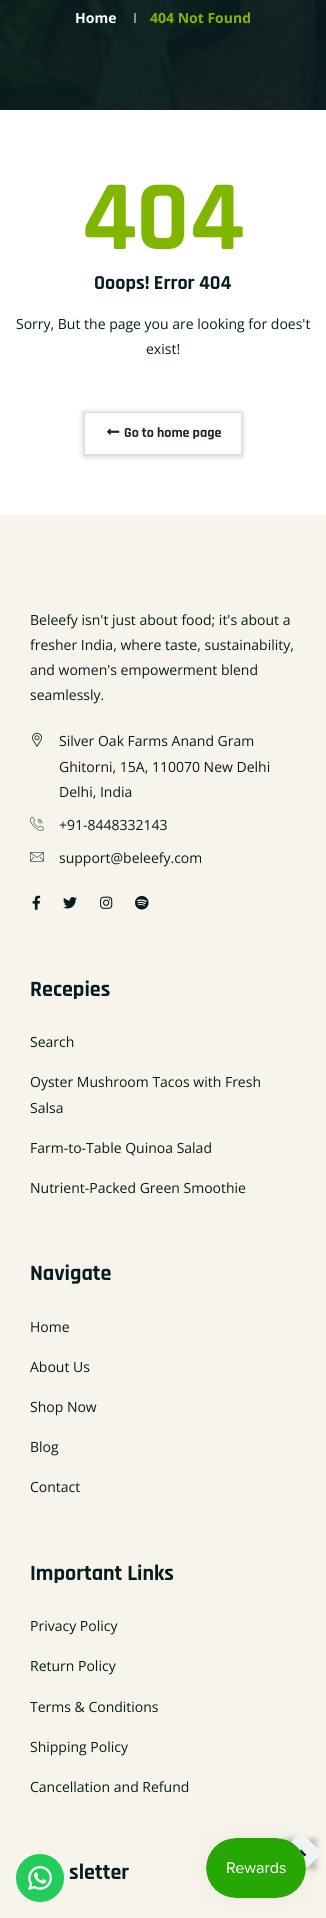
#include <cairo.h>
#include <math.h>
#include <stddef.h>

static cairo_t *c;
static void C(unsigned color){cairo_set_source_rgb(c, (color >> 16) / 255.0, (color >> 8 & 255) / 255.0, (color & 255) / 255.0);}
static void F(const char *family, double size, int italic, int bold){cairo_select_font_face(c, family, italic ? CAIRO_FONT_SLANT_ITALIC : CAIRO_FONT_SLANT_NORMAL,bold ? CAIRO_FONT_WEIGHT_BOLD : CAIRO_FONT_WEIGHT_NORMAL);cairo_set_font_size(c, size);}
static void T(double x, double y, const char *s){cairo_move_to(c, x, y);cairo_show_text(c, s);}
static void R(double x, double y, double w, double h){cairo_rectangle(c, x, y, w, h);cairo_fill(c);}
static void Q(double x, double y, double w, double h, double r){cairo_new_sub_path(c);cairo_arc(c, x + w - r, y + h - r, r, 0, M_PI / 2);cairo_arc(c, x + r, y + h - r, r, M_PI / 2, M_PI);cairo_arc(c, x + r, y + r, r, M_PI, 1.5 * M_PI);cairo_arc(c, x + w - r, y + r, r, 1.5 * M_PI, 2 * M_PI);cairo_close_path(c);}
static void S(double x, double y, double w, double h, double r, double blur, double alpha){cairo_push_group_with_content(c, CAIRO_CONTENT_ALPHA);cairo_set_operator(c, CAIRO_OPERATOR_SOURCE);for (int i = 15; i >= -15 && fmin(w, h) + blur * i / 3 > 0; i -= 2) {double e = blur * i / 6;cairo_set_source_rgba(c, 0, 0, 0, alpha * erfc((i - 1) / 8.5) / 2);Q(x - e, y - e, w + 2 * e, h + 2 * e, fmax(0, fmin(r + e + blur * .6, fmin(w, h) / 2 + e)));cairo_fill(c);}cairo_pattern_t *soft = cairo_pop_group(c);cairo_mask(c, soft);cairo_pattern_destroy(soft);}
static void I(const char *path, double x, double y, double w, double h){cairo_surface_t *image = cairo_image_surface_create_from_png(path);cairo_save(c);cairo_set_source_surface(c, image, x, y);cairo_rectangle(c, x, y, w, h);cairo_fill(c);cairo_restore(c);cairo_surface_destroy(image);}
int main(void) {
cairo_surface_t *surface = cairo_image_surface_create(CAIRO_FORMAT_RGB24, 326, 1918);
c = cairo_create(surface);
cairo_font_options_t *options = cairo_font_options_create();
cairo_font_options_set_hint_metrics(options, CAIRO_HINT_METRICS_OFF);
cairo_font_options_set_hint_style(options, CAIRO_HINT_STYLE_NONE);
cairo_set_font_options(c, options);
cairo_set_miter_limit(c, 4);
C(0xffffff);
cairo_paint(c);
I("1.png",0,0,326,110);
F("Open Sans",14,0,1);
C(0xffffff);
T(75,23,"Home");
C(0x879291);
R(134,13,2,10);
C(0x80b500);
T(150,23,"404 Not Found");
F("Rajdhani",100,0,1);
T(82,249,"404");
F("Rajdhani",20,0,1);
C(0x071c1f);
T(94,289,"Ooops! Error 404");
F("Open Sans",14,0,0);
T(16,329,"Sorry, But the page you are looking for does't");
T(146,354,"exist!");
cairo_save(c);
cairo_set_fill_rule(c,CAIRO_FILL_RULE_EVEN_ODD);
cairo_new_path(c);
cairo_move_to(c,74,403);
cairo_line_to(c,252,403);
cairo_line_to(c,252,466);
cairo_line_to(c,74,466);
cairo_close_path(c);
cairo_move_to(c,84,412);
cairo_line_to(c,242,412);
cairo_line_to(c,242,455);
cairo_line_to(c,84,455);
cairo_close_path(c);
cairo_clip(c);
C(0x202124);
S(84,413,158,43,0,3,.28);
cairo_restore(c);
cairo_rectangle(c,84.5,412.5,157,42);
C(0xdddddd);
cairo_set_line_width(c,1);
cairo_stroke(c);
I("2.png",107,428,13,7);
F("Rajdhani",14,0,1);
C(0x212529);
T(124,437,"Go to home page");
C(0xf7f5eb);
R(0,515,326,1403);
F("Open Sans",14,0,0);
C(0x071c1f);
T(30,625,"Beleefy isn't just about food; it's about a");
T(30,650,"fresher India, where taste, sustainability,");
T(30,675,"and women's empowerment blend");
T(30,700,"seamlessly.");
I("3.png",32,732,10,15);
T(59,746,"Silver Oak Farms Anand Gram");
T(59,772,"Ghitorni, 15A, 110070 New Delhi");
T(59,797,"Delhi, India");
I("4.png",30,816,14,15);
T(59,830,"+91-8448332143");
I("5.png",30,852,14,10);
T(59,863,"support@beleefy.com");
I("6.png",32,895,9,15);
I("7.png",63,897,14,12);
I("8.png",100,896,13,13);
I("9.png",135,896,14,14);
F("Rajdhani",22,0,1);
T(30,996,"Recepies");
F("Open Sans",14,0,0);
T(30,1047,"Search");
T(30,1087,"Oyster Mushroom Tacos with Fresh");
T(30,1113,"Salsa");
T(30,1153,"Farm-to-Table Quinoa Salad");
T(30,1193,"Nutrient-Packed Green Smoothie");
F("Rajdhani",22,0,1);
T(30,1280,"Navigate");
F("Open Sans",14,0,0);
T(30,1332,"Home");
T(30,1372,"About Us");
T(30,1412,"Shop Now");
T(30,1452,"Blog");
T(30,1492,"Contact");
F("Rajdhani",22,0,1);
T(30,1580,"Important Links");
F("Open Sans",14,0,0);
T(30,1631,"Privacy Policy");
T(30,1671,"Return Policy");
T(30,1712,"Terms & Conditions");
T(30,1752,"Shipping Policy");
T(30,1792,"Cancellation and Refund");
F("Rajdhani",22,0,1);
T(69,1879,"sletter");
C(0x202124);
S(286,1839,30,30,0,3,.28);
C(0xf2f6f7);
cairo_new_path(c);
cairo_move_to(c,301,1832);
cairo_line_to(c,322,1853);
cairo_line_to(c,301,1874);
cairo_line_to(c,280,1853);
cairo_close_path(c);
cairo_fill(c);
I("12.png",299,1849,7,8);
C(0x000000);
S(206,1838,100,60,30,12.5,.05);
I("10.png",206,1838,100,60);
C(0x22cd5b);
cairo_arc(c,40,1878,24,0,2 * M_PI);
cairo_fill(c);
I("11.png",28,1866,24,24);
cairo_surface_write_to_png(surface, "o.png");
cairo_font_options_destroy(options);
cairo_destroy(c);
cairo_surface_destroy(surface);
return 0;
}
